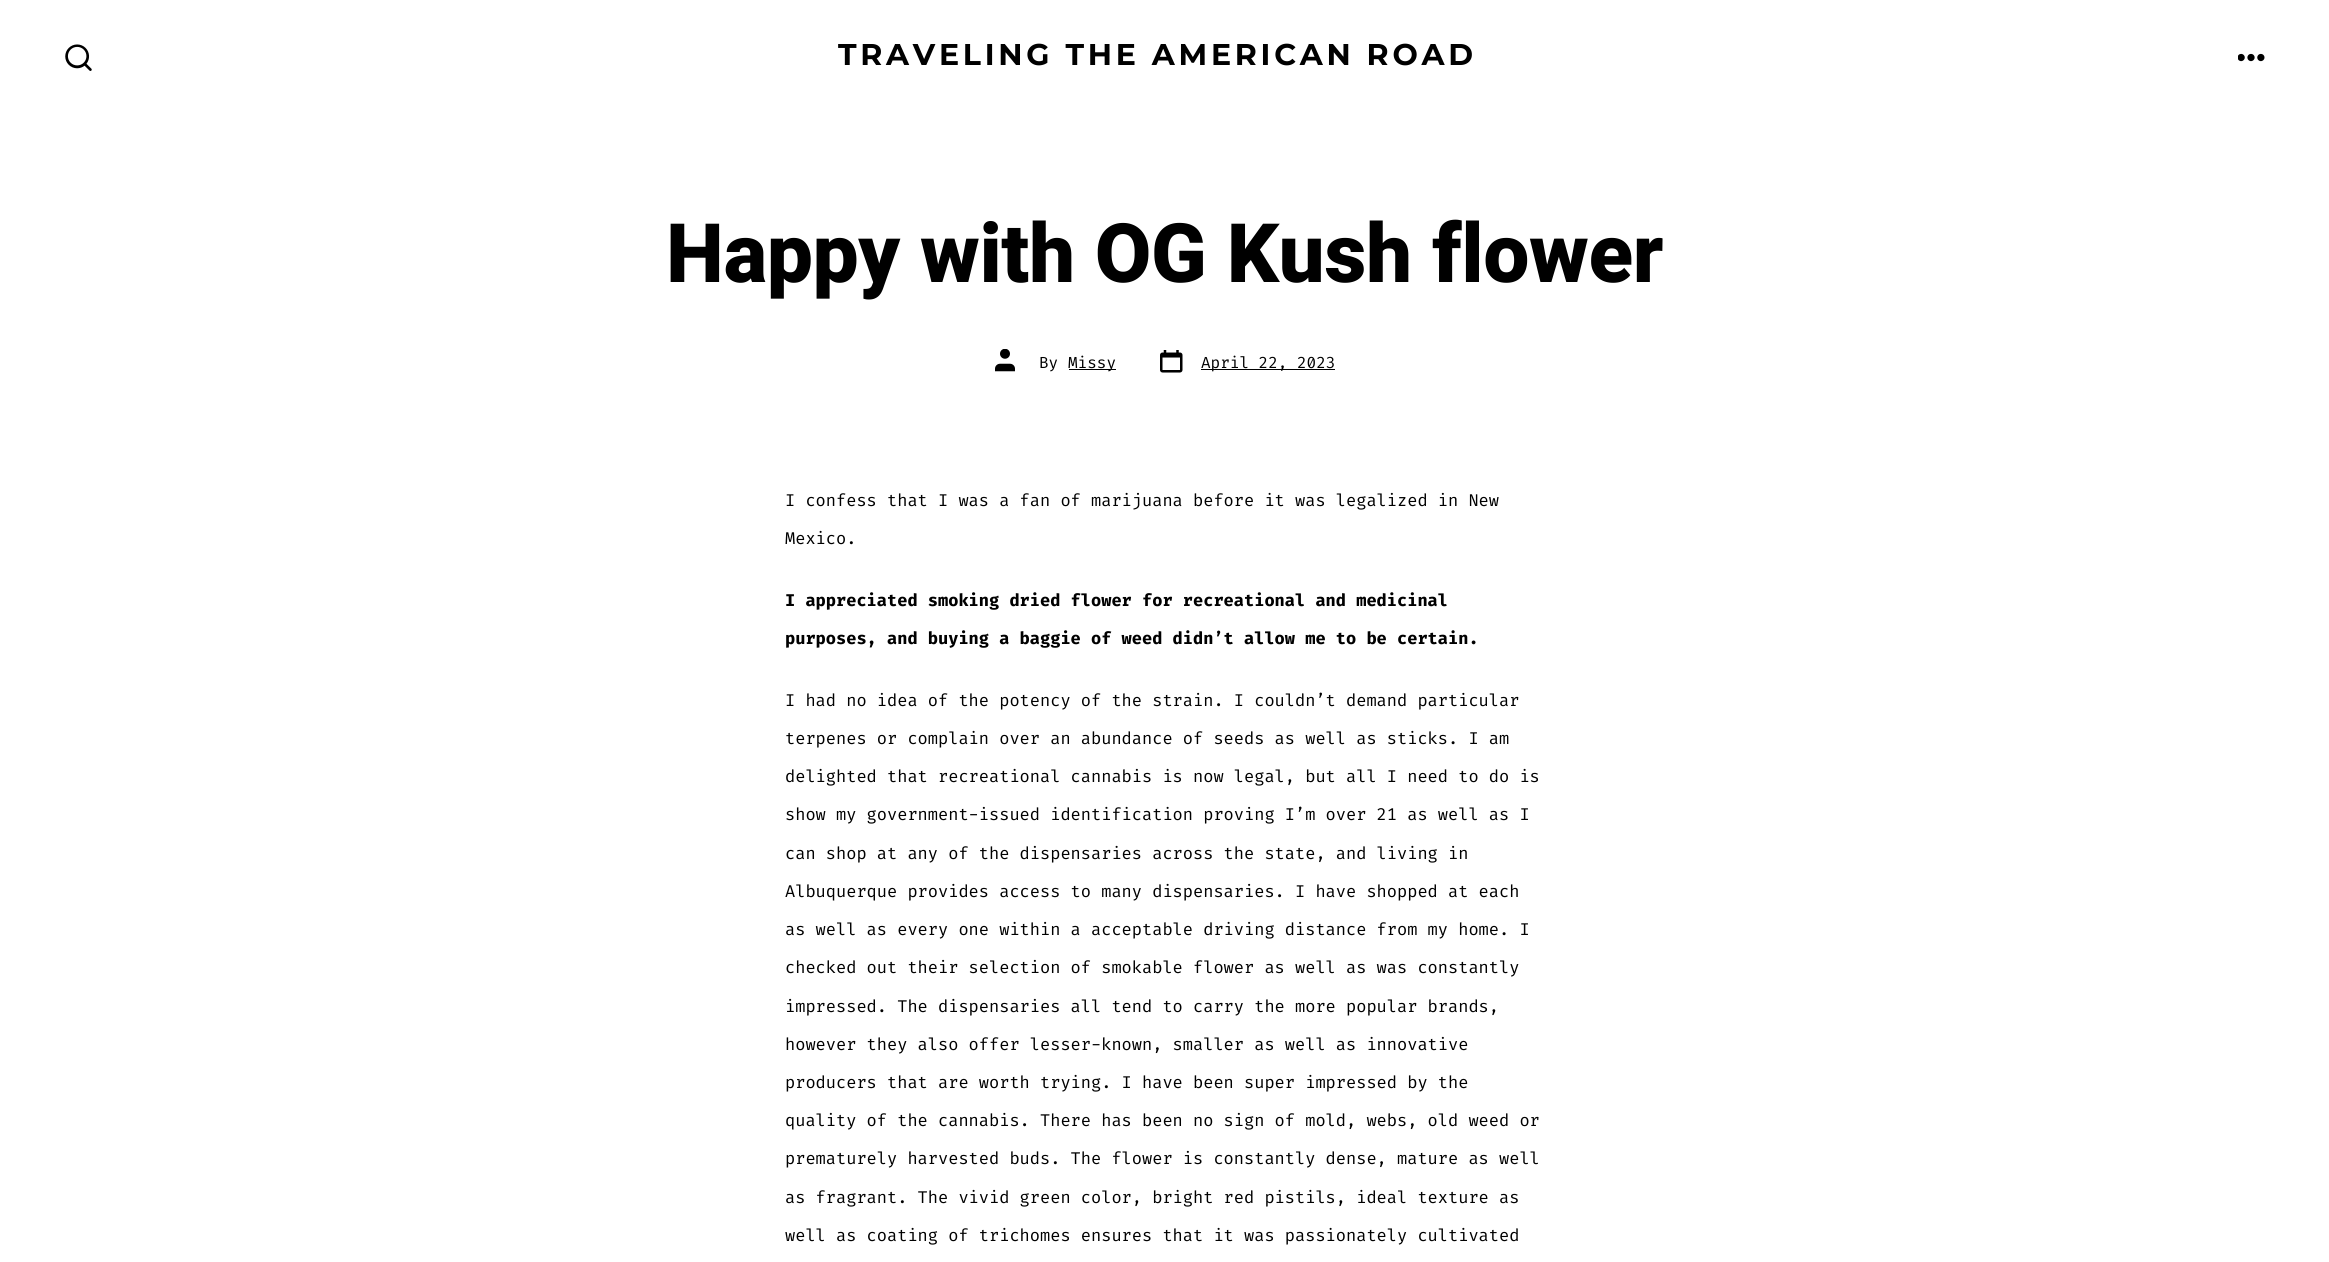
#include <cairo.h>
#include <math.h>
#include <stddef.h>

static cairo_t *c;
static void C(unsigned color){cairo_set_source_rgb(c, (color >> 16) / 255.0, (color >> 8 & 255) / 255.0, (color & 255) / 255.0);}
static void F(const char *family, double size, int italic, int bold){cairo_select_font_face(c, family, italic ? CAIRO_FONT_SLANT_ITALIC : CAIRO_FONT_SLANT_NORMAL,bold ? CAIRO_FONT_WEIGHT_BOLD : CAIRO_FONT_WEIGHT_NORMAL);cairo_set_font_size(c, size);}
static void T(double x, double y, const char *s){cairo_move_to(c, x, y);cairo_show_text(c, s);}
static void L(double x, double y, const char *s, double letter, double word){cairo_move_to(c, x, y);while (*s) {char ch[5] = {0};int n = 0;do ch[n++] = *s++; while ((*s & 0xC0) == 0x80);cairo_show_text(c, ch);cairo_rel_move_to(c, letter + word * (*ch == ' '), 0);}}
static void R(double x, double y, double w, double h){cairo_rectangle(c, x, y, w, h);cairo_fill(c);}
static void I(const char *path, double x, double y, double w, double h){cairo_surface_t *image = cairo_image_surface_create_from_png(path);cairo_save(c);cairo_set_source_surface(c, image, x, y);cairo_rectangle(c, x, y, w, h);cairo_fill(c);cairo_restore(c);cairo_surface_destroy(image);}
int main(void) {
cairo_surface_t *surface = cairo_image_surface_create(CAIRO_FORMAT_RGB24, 2329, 1262);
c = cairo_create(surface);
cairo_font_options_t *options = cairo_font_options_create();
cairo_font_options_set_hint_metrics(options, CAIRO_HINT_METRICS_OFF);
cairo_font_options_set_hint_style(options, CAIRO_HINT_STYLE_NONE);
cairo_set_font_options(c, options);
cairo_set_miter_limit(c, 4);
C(0xffffff);
cairo_paint(c);
I("1.png",65,44,27,27);
F("Montserrat",30,0,1);
C(0x000000);
L(838,65,"TRAVELING THE AMERICAN ROAD",3.75,0);
I("2.png",2238,53,27,9);
F("Heebo ExtraBold",82,0,0);
L(666,282,"Happy with OG Kush flower",-.4,0);
I("3.png",995,349,20,23);
F("Fira Code",16,0,0);
T(1039,368,"By");
R(1069,369,47,1);
T(1068,368,"Missy");
I("4.png",1160,350,23,23);
R(1201,369,134,1);
T(1201,368,"April 22, 2023");
F("Fira Code",17,0,0);
T(785,506,"I confess that I was a fan of marijuana before it was legalized in New");
T(785,544,"Mexico.");
F("Fira Code",17,0,1);
T(785,606,"I appreciated smoking dried flower for recreational and medicinal");
T(785,644,"purposes, and buying a baggie of weed didn’t allow me to be certain.");
F("Fira Code",17,0,0);
T(785,706,"I had no idea of the potency of the strain. I couldn’t demand particular");
T(785,744,"terpenes or complain over an abundance of seeds as well as sticks. I am");
T(785,782,"delighted that recreational cannabis is now legal, but all I need to do is");
T(785,820,"show my government-issued identification proving I’m over 21 as well as I");
T(785,859,"can shop at any of the dispensaries across the state, and living in");
T(785,897,"Albuquerque provides access to many dispensaries. I have shopped at each");
T(785,935,"as well as every one within a acceptable driving distance from my home. I");
T(785,973,"checked out their selection of smokable flower as well as was constantly");
T(785,1012,"impressed. The dispensaries all tend to carry the more popular brands,");
T(785,1050,"however they also offer lesser-known, smaller as well as innovative");
T(785,1088,"producers that are worth trying. I have been super impressed by the");
T(785,1126,"quality of the cannabis. There has been no sign of mold, webs, old weed or");
T(785,1164,"prematurely harvested buds. The flower is constantly dense, mature as well");
T(785,1203,"as fragrant. The vivid green color, bright red pistils, ideal texture as");
T(785,1241,"well as coating of trichomes ensures that it was passionately cultivated");
cairo_surface_write_to_png(surface, "o.png");
cairo_font_options_destroy(options);
cairo_destroy(c);
cairo_surface_destroy(surface);
return 0;
}
